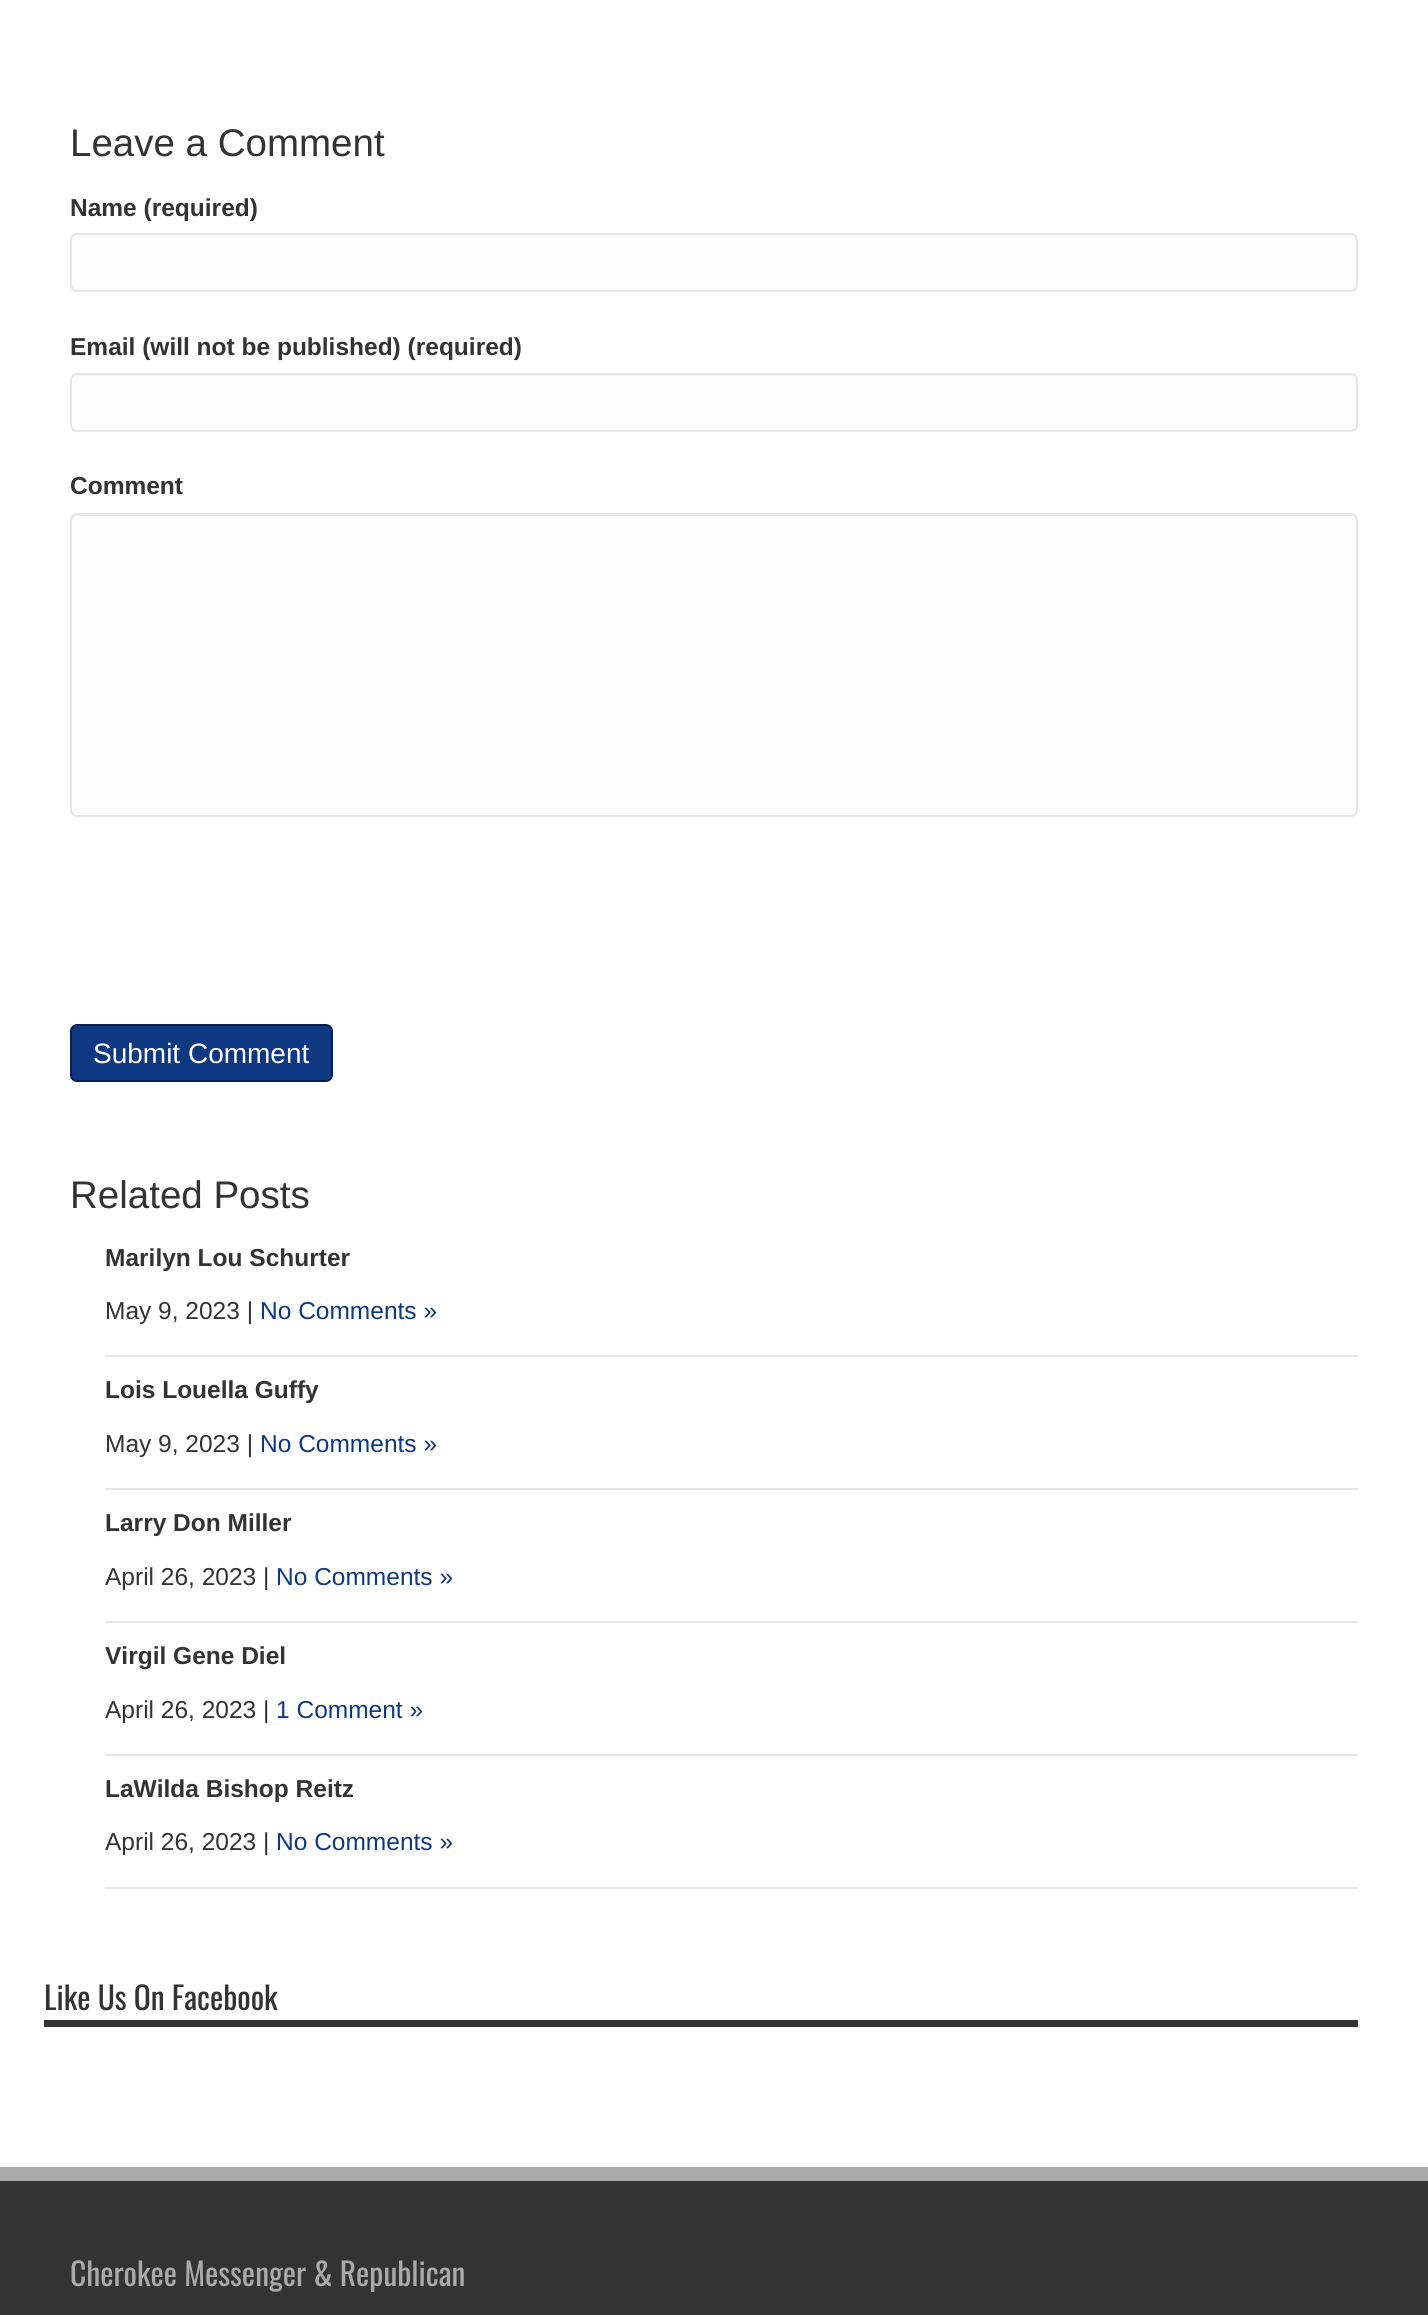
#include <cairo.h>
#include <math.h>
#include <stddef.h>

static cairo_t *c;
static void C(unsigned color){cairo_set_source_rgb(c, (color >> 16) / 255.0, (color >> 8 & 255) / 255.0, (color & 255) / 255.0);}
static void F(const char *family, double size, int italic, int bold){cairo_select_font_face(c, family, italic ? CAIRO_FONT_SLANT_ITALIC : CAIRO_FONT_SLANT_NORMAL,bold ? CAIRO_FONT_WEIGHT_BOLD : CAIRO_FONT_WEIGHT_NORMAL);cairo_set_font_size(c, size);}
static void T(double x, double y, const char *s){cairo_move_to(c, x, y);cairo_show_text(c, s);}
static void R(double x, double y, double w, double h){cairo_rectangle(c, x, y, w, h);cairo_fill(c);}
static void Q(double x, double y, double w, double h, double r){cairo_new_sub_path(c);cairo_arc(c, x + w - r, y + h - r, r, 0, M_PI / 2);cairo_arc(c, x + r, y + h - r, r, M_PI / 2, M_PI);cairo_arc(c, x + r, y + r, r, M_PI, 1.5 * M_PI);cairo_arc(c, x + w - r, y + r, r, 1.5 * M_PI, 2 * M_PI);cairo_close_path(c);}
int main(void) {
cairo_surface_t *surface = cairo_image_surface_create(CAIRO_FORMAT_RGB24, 1428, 2315);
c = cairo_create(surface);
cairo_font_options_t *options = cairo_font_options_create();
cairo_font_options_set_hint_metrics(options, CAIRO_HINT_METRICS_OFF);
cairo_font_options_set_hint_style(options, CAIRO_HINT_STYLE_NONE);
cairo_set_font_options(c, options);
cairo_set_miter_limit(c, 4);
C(0x333333);
cairo_paint(c);
C(0xffffff);
R(0,0,1428,2167);
F("Liberation Sans",38.5,0,0);
C(0x333333);
T(70,156,"Leave a Comment");
F("Liberation Sans",24.5,0,1);
T(70,216,"Name (required)");
C(0xfcfcfc);
Q(71,234,1286,57,6);
cairo_fill_preserve(c);
C(0xe6e6e6);
cairo_stroke(c);
C(0x333333);
T(70,355,"Email (will not be published) (required)");
C(0xfcfcfc);
Q(71,374,1286,57,6);
cairo_fill_preserve(c);
C(0xe6e6e6);
cairo_stroke(c);
C(0x333333);
T(70,494,"Comment");
C(0xfcfcfc);
Q(70,513,1288,304,7);
cairo_fill(c);
C(0xe9e9e9);
cairo_new_path(c);
cairo_move_to(c,77,516);
cairo_line_to(c,1351,516);
cairo_curve_to(c,1354,516,1356,519,1356,522);
cairo_line_to(c,1356,520);
cairo_curve_to(c,1356,517,1354,515,1351,515);
cairo_line_to(c,77,515);
cairo_curve_to(c,74,515,72,517,72,520);
cairo_line_to(c,72,522);
cairo_curve_to(c,72,519,74,516,77,516);
cairo_close_path(c);
cairo_fill(c);
Q(71,514,1286,302,6);
C(0xe6e6e6);
cairo_stroke(c);
C(0x0e3882);
Q(71,1025,261,56,6);
cairo_fill_preserve(c);
C(0x08204b);
cairo_stroke(c);
F("Liberation Sans",28,0,0);
C(0xffffff);
T(93,1063,"Submit Comment");
F("Liberation Sans",38.5,0,0);
C(0x333333);
T(70,1208,"Related Posts");
C(0xe6e6e6);
R(105,1355,1253,2);
F("Liberation Sans",24.5,0,1);
C(0x333333);
T(105,1266,"Marilyn Lou Schurter");
F("Liberation Sans",24.5,0,0);
T(105,1319,"May 9, 2023 |");
C(0x0e3882);
T(260,1319,"No Comments »");
C(0xe6e6e6);
R(105,1488,1253,2);
F("Liberation Sans",24.5,0,1);
C(0x333333);
T(105,1398,"Lois Louella Guffy");
F("Liberation Sans",24.5,0,0);
T(105,1452,"May 9, 2023 |");
C(0x0e3882);
T(260,1452,"No Comments »");
C(0xe6e6e6);
R(105,1621,1253,2);
F("Liberation Sans",24.5,0,1);
C(0x333333);
T(105,1531,"Larry Don Miller");
F("Liberation Sans",24.5,0,0);
T(105,1585,"April 26, 2023 |");
C(0x0e3882);
T(276,1585,"No Comments »");
C(0xe6e6e6);
R(105,1754,1253,2);
F("Liberation Sans",24.5,0,1);
C(0x333333);
T(105,1664,"Virgil Gene Diel");
F("Liberation Sans",24.5,0,0);
T(105,1718,"April 26, 2023 |");
C(0x0e3882);
T(276,1718,"1 Comment »");
C(0xe6e6e6);
R(105,1887,1253,2);
F("Liberation Sans",24.5,0,1);
C(0x333333);
T(105,1797,"LaWilda Bishop Reitz");
F("Liberation Sans",24.5,0,0);
T(105,1850,"April 26, 2023 |");
C(0x0e3882);
T(276,1850,"No Comments »");
C(0x333333);
R(44,2020,1314,7);
F("Oswald",31.5,0,0);
T(44,2010,"Like Us On Facebook");
C(0xaaaaaa);
R(0,2167,1428,14);
T(70,2286,"Cherokee Messenger & Republican");
cairo_surface_write_to_png(surface, "o.png");
cairo_font_options_destroy(options);
cairo_destroy(c);
cairo_surface_destroy(surface);
return 0;
}
